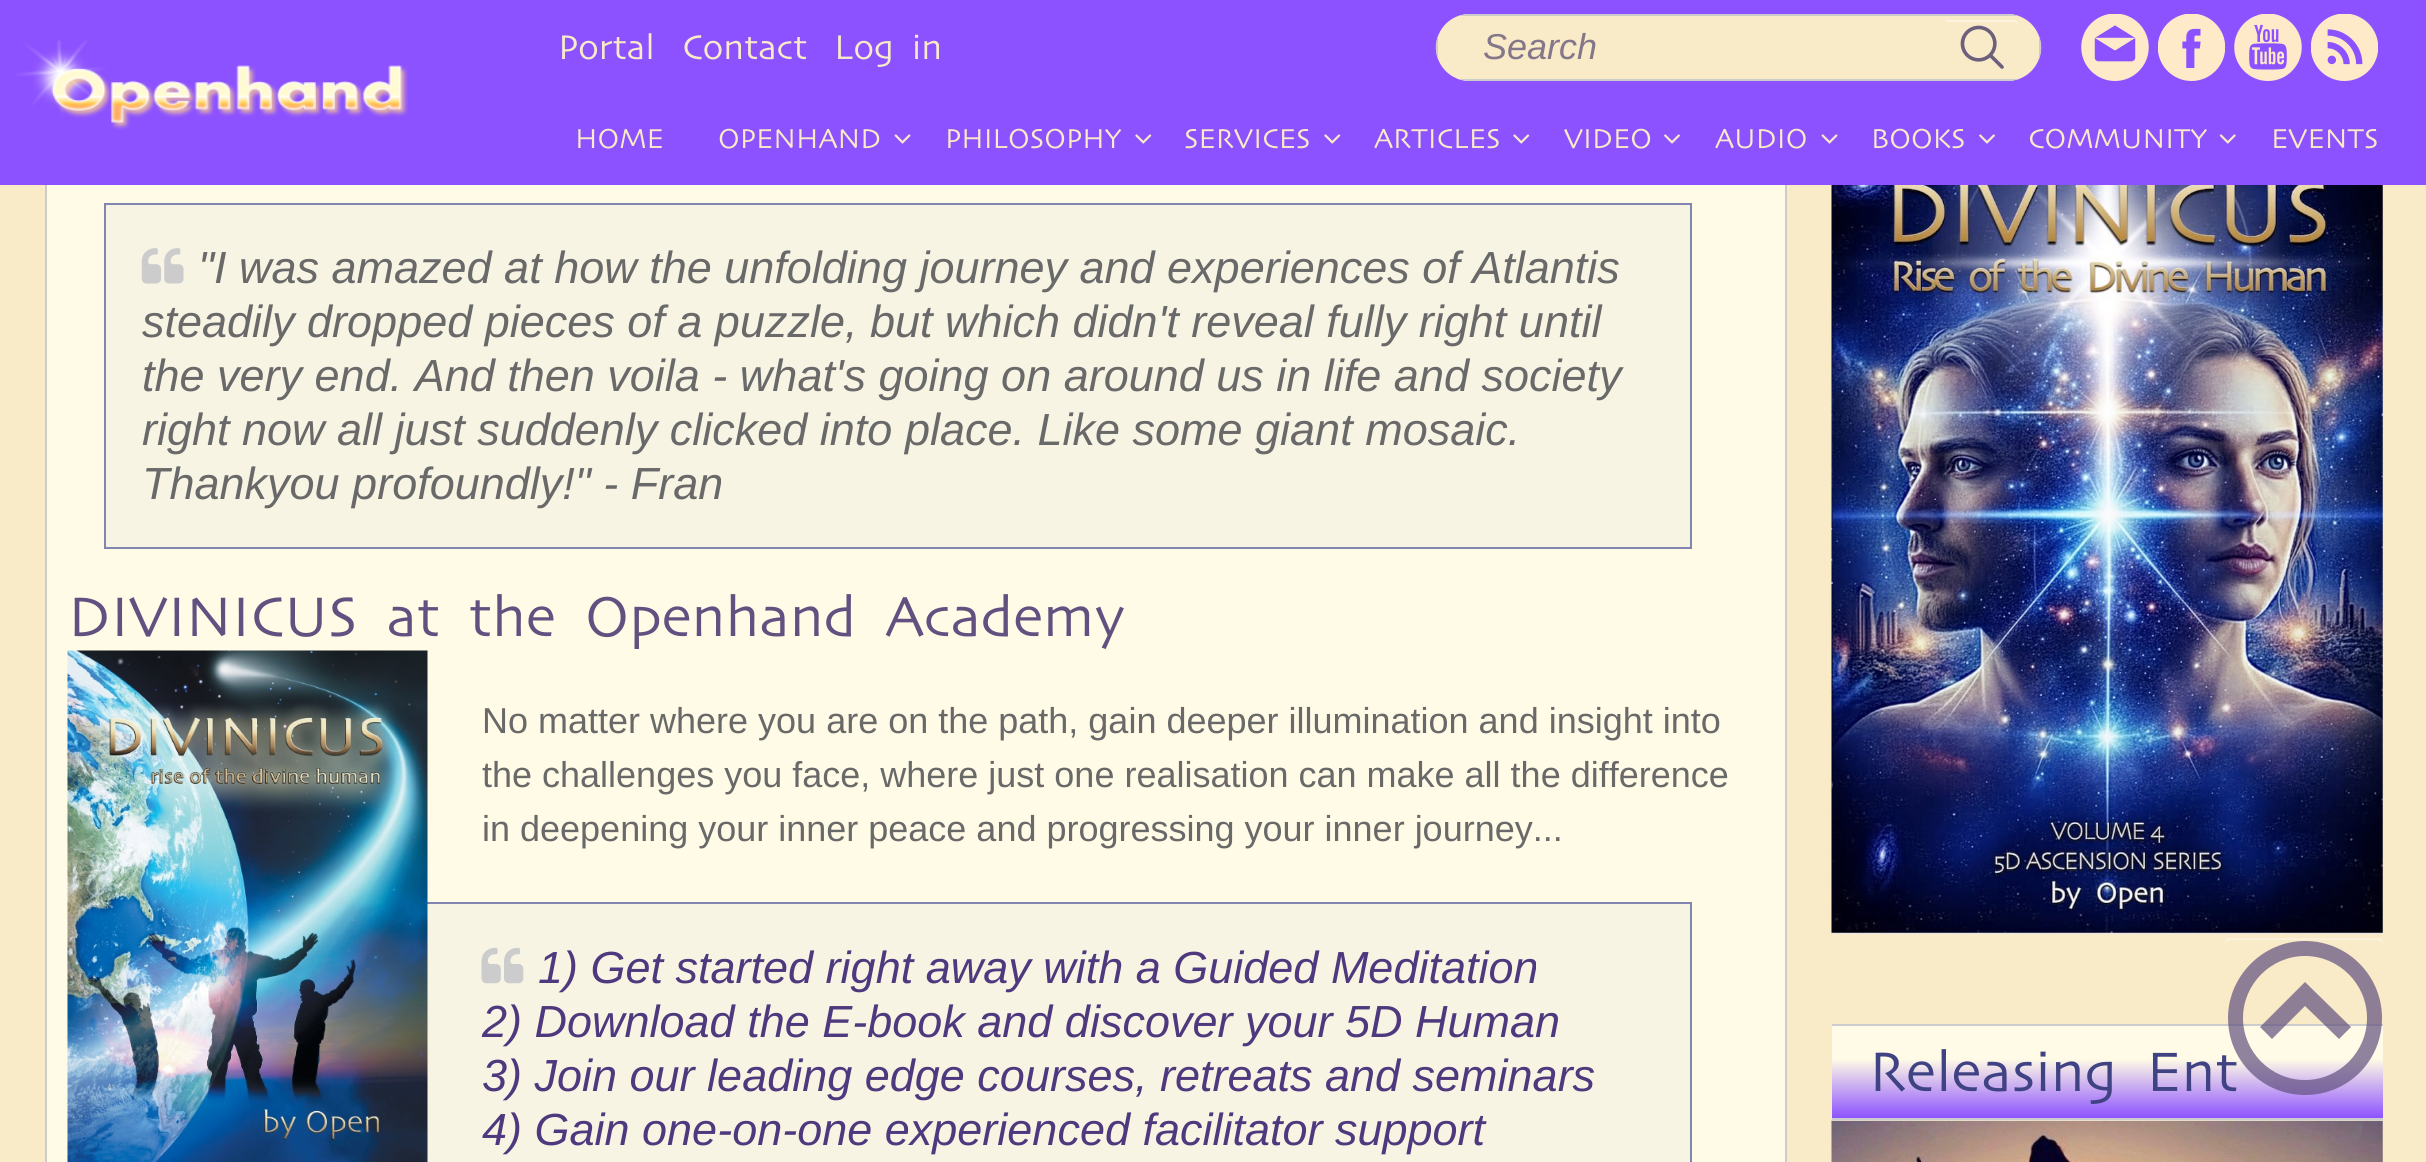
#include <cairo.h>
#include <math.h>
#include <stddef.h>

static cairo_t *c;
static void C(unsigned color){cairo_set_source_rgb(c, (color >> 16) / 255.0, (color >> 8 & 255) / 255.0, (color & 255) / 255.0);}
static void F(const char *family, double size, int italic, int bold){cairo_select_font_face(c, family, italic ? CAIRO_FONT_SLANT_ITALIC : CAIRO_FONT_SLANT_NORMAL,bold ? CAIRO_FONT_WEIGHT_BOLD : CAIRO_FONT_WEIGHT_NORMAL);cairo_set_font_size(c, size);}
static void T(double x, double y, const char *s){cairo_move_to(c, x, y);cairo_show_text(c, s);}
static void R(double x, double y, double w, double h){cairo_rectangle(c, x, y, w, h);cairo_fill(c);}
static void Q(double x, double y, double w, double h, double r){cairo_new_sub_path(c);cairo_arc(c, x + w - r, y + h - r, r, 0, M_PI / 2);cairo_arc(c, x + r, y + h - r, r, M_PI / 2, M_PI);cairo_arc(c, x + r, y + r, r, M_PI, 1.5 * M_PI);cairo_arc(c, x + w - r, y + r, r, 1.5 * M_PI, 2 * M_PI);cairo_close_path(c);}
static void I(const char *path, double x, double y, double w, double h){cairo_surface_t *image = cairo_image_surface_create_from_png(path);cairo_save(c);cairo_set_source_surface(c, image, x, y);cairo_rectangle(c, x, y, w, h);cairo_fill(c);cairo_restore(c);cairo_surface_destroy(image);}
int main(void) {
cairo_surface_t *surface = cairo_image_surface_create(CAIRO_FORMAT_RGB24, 2426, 1162);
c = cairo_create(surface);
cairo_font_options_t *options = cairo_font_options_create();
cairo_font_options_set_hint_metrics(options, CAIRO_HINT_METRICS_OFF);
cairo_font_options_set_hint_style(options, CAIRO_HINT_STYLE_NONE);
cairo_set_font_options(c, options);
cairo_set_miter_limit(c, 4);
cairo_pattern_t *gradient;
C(0xf9eac8);
cairo_paint(c);
C(0xfffbe6);
R(47,185,1738,977);
cairo_rectangle(c,46,-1,1740,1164);
C(0xcccccc);
cairo_stroke(c);
C(0x8c52ff);
R(0,0,2426,185);
I("1.png",16,40,392,90);
F("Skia",36,0,0);
C(0xf9eac8);
T(558,59,"Portal");
T(682,59,"Contact");
T(834,59,"Log in");
Q(1436,14,605,67,33.5);
cairo_fill(c);
C(0xcccccc);
cairo_set_fill_rule(c,CAIRO_FILL_RULE_EVEN_ODD);
cairo_new_path(c);
cairo_move_to(c,1470,81);
cairo_line_to(c,2008,81);
cairo_curve_to(c,2012,81,2015,80,2019,79);
cairo_line_to(c,1458,79);
cairo_curve_to(c,1462,80,1465,81,1470,81);
cairo_close_path(c);
cairo_move_to(c,1438,59);
cairo_curve_to(c,1435,52,1435,43,1438,36);
cairo_close_path(c);
cairo_move_to(c,1470,14);
cairo_curve_to(c,1465,14,1462,15,1458,16);
cairo_line_to(c,2019,16);
cairo_curve_to(c,2015,15,2012,14,2008,14);
cairo_close_path(c);
cairo_move_to(c,2039,36);
cairo_line_to(c,2039,59);
cairo_curve_to(c,2042,52,2042,43,2039,36);
cairo_close_path(c);
cairo_fill(c);
F("Liberation Sans",36,1,0);
C(0x847789);
T(1483,59,"Search");
I("2.png",1960,25,44,44);
C(0xfcf4e1);
cairo_set_fill_rule(c,CAIRO_FILL_RULE_WINDING);
cairo_new_path(c);
cairo_move_to(c,1946,22);
cairo_line_to(c,2014,22);
cairo_curve_to(c,2016,22,2018,25,2018,27);
cairo_line_to(c,2018,25);
cairo_curve_to(c,2018,22,2016,20,2013,20);
cairo_line_to(c,1946,20);
cairo_close_path(c);
cairo_fill(c);
I("3.png",2081,14,68,67);
I("4.png",2158,14,67,67);
I("5.png",2234,14,68,67);
I("6.png",2311,14,67,67);
F("Skia",28.75,0,0);
C(0xf9eac8);
T(575,148,"HOME");
T(718,148,"OPENHAND");
I("7.png",894,134,17,10);
T(945,148,"PHILOSOPHY");
I("8.png",1135,134,17,10);
T(1184,148,"SERVICES");
I("8.png",1324,134,17,10);
T(1374,148,"ARTICLES");
I("8.png",1513,134,17,10);
T(1564,148,"VIDEO");
I("9.png",1664,134,16,10);
T(1715,148,"AUDIO");
I("7.png",1821,134,17,10);
T(1871,148,"BOOKS");
I("9.png",1979,134,16,10);
T(2028,148,"COMMUNITY");
I("10.png",2219,134,17,10);
T(2271,148,"EVENTS");
C(0xf8f4e4);
cairo_rectangle(c,105,204,1586,344);
cairo_fill_preserve(c);
C(0x8285b1);
cairo_stroke(c);
I("11.png",141,248,43,36);
F("Liberation Sans",45,1,0);
C(0x696969);
T(198,283,"\"I was amazed at how the unfolding journey and experiences of Atlantis");
T(142,337,"steadily dropped pieces of a puzzle, but which didn't reveal fully right until");
T(142,391,"the very end. And then voila - what's going on around us in life and society");
T(142,445,"right now all just suddenly clicked into place. Like some giant mosaic.");
T(142,499,"Thankyou profoundly!\" - Fran");
F("Skia",58.5,0,0);
C(0x625180);
T(68,636,"DIVINICUS at the Openhand Academy");
C(0xf8f4e4);
R(427,904,1263,258);
cairo_rectangle(c,105,903,1586,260);
C(0x8285b1);
cairo_stroke(c);
I("12.png",67,650,361,512);
F("Liberation Sans",36,0,0);
C(0x696969);
T(482,733,"No matter where you are on the path, gain deeper illumination and insight into");
T(482,787,"the challenges you face, where just one realisation can make all the difference");
T(482,841,"in deepening your inner peace and progressing your inner journey...");
I("13.png",481,947,43,37);
F("Liberation Sans",45,1,0);
C(0x4e387e);
T(538,983,"1) Get started right away with a Guided Meditation");
T(482,1037,"2) Download the E-book and discover your 5D Human");
T(482,1091,"3) Join our leading edge courses, retreats and seminars");
T(482,1145,"4) Gain one-on-one experienced facilitator support");
I("14.png",1831,185,552,749);
C(0xfffbe6);
R(1832,1120,551,1);
gradient = cairo_pattern_create_linear(2107,1026,2107,1118);
cairo_pattern_add_color_stop_rgba(gradient,.36,1,0.984,0.902,1);
cairo_pattern_add_color_stop_rgba(gradient,1,0.549,0.322,1,1);
cairo_set_source(c,gradient);
cairo_pattern_destroy(gradient);
R(1832,1026,551,92);
C(0xcccccc);
R(1832,1024,551,2);
R(1832,1118,551,2);
F("Skia",58.5,0,0);
C(0x3f4283);
T(1869,1091,"Releasing Ent");
I("15.png",1831,1120,552,42);
cairo_set_source_rgba(c,0.384,0.318,0.502,0.7);
cairo_new_path(c);
cairo_move_to(c,2305,1080);
cairo_curve_to(c,2339,1080,2367,1052,2367,1018);
cairo_curve_to(c,2367,984,2339,956,2305,956);
cairo_curve_to(c,2271,956,2243,984,2243,1018);
cairo_curve_to(c,2243,1052,2271,1080,2305,1080);
cairo_close_path(c);
cairo_move_to(c,2305,941);
cairo_curve_to(c,2348,941,2382,976,2382,1018);
cairo_curve_to(c,2382,1061,2348,1095,2305,1095);
cairo_curve_to(c,2263,1095,2228,1061,2228,1018);
cairo_curve_to(c,2228,976,2263,941,2305,941);
cairo_close_path(c);
cairo_move_to(c,2272,1039);
cairo_line_to(c,2260,1027);
cairo_line_to(c,2305,982);
cairo_line_to(c,2351,1027);
cairo_line_to(c,2339,1039);
cairo_line_to(c,2305,1006);
cairo_close_path(c);
cairo_fill(c);
C(0xfbf2dc);
cairo_new_path(c);
cairo_move_to(c,2230,940);
cairo_line_to(c,2378,940);
cairo_curve_to(c,2381,940,2383,943,2383,945);
cairo_line_to(c,2383,943);
cairo_curve_to(c,2383,940,2381,938,2378,938);
cairo_line_to(c,2230,938);
cairo_curve_to(c,2227,938,2225,940,2225,943);
cairo_line_to(c,2225,945);
cairo_curve_to(c,2225,943,2227,940,2230,940);
cairo_close_path(c);
cairo_fill(c);
cairo_surface_write_to_png(surface, "o.png");
cairo_font_options_destroy(options);
cairo_destroy(c);
cairo_surface_destroy(surface);
return 0;
}
